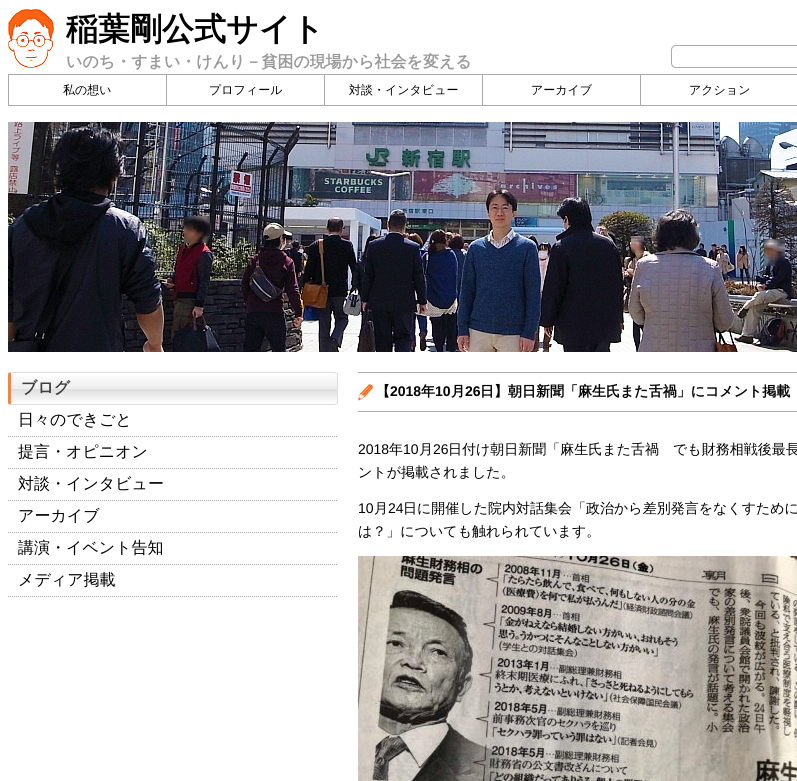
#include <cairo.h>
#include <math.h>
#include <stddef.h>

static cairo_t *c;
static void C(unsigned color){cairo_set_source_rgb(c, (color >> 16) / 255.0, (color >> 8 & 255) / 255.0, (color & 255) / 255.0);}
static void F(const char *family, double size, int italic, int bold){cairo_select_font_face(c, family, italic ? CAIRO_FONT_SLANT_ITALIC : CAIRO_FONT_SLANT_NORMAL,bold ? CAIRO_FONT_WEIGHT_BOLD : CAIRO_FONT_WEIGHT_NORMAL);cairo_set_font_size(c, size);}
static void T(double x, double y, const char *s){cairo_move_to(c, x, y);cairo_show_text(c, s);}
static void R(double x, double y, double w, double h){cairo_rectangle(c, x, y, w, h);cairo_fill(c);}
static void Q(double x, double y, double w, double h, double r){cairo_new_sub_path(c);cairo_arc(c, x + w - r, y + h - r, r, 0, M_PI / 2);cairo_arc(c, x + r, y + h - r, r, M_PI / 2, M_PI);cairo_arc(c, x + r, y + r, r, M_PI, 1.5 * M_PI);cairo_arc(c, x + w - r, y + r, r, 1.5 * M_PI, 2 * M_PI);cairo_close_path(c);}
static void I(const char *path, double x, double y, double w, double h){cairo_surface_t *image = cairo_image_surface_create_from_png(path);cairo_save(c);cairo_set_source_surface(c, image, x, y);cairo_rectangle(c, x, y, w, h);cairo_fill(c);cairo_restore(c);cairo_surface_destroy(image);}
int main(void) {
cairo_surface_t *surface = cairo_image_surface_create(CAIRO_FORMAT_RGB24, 797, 781);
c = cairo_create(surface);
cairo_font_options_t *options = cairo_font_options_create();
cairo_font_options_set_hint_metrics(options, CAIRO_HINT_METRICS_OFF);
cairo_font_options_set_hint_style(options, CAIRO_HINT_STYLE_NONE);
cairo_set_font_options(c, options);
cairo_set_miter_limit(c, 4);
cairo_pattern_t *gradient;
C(0xffffff);
cairo_paint(c);
I("1.png",8,9,46,59);
F("WenQuanYi Zen Hei",32,0,1);
C(0x000000);
T(66,40,"稲葉剛公式サイト");
F("WenQuanYi Zen Hei",16,0,1);
C(0x999999);
T(66,67,"いのち・すまい・けんり－貧困の現場から社会を変える");
Q(671.5,45.5,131,22,4.5);
C(0xaaaaaa);
cairo_set_line_width(c,1);
cairo_stroke(c);
cairo_rectangle(c,8.5,74.5,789,31);
cairo_stroke(c);
R(166,75,1,30);
F("WenQuanYi Zen Hei Medium",12,0,0);
C(0x000000);
T(63,94,"私の想い");
C(0xaaaaaa);
R(324,75,1,30);
C(0x000000);
T(209,94,"プロフィール");
C(0xaaaaaa);
R(482,75,1,30);
C(0x000000);
T(349,94,"対談・インタビュー");
C(0xaaaaaa);
R(640,75,1,30);
C(0x000000);
T(531,94,"アーカイブ");
T(689,94,"アクション");
I("2.png",8,122,789,230);
gradient = cairo_pattern_create_linear(11,373,11,404);
cairo_pattern_add_color_stop_rgba(gradient,0,1,1,1,1);
cairo_pattern_add_color_stop_rgba(gradient,.5,0.933,0.933,0.933,1);
cairo_pattern_add_color_stop_rgba(gradient,.51,0.867,0.867,0.867,1);
cairo_pattern_add_color_stop_rgba(gradient,1,1,1,1,1);
cairo_set_source(c,gradient);
cairo_pattern_destroy(gradient);
cairo_new_path(c);
cairo_move_to(c,11,373);
cairo_line_to(c,335,373);
cairo_curve_to(c,336,373,337,374,337,375);
cairo_line_to(c,337,402);
cairo_curve_to(c,337,403,336,404,335,404);
cairo_line_to(c,11,404);
cairo_close_path(c);
cairo_fill(c);
C(0xdddddd);
cairo_new_path(c);
cairo_move_to(c,11,372);
cairo_line_to(c,9,372);
cairo_line_to(c,11,373);
cairo_line_to(c,335,373);
cairo_line_to(c,336,374);
cairo_line_to(c,337,373);
cairo_line_to(c,335,372);
cairo_close_path(c);
cairo_fill(c);
cairo_new_path(c);
cairo_move_to(c,338,402);
cairo_line_to(c,338,375);
cairo_curve_to(c,338,374,338,373,337,373);
cairo_line_to(c,336.5,373.5);
cairo_line_to(c,337,375);
cairo_line_to(c,337,402);
cairo_line_to(c,336.5,403.5);
cairo_line_to(c,337,404);
cairo_curve_to(c,338,404,338,403,338,402);
cairo_close_path(c);
cairo_fill(c);
cairo_new_path(c);
cairo_move_to(c,11,405);
cairo_line_to(c,335,405);
cairo_line_to(c,337,404);
cairo_line_to(c,336,403);
cairo_line_to(c,335,404);
cairo_line_to(c,11,404);
cairo_line_to(c,9,405);
cairo_close_path(c);
cairo_fill(c);
C(0xff8133);
cairo_new_path(c);
cairo_move_to(c,11,373);
cairo_line_to(c,9,372.5);
cairo_curve_to(c,8.5,373,8,373.5,8,375);
cairo_line_to(c,8,402);
cairo_curve_to(c,8,403.5,8.5,404,9,404.5);
cairo_line_to(c,11,404);
cairo_close_path(c);
cairo_fill(c);
F("WenQuanYi Zen Hei",16,0,1);
C(0x3f3f3f);
T(21,393,"ブログ");
cairo_new_path(c);
cairo_move_to(c,8,436.5);
cairo_line_to(c,338,436.5);
C(0xaaaaaa);
cairo_set_dash(c,(double[]){1,1},2,0);
cairo_stroke(c);
F("WenQuanYi Zen Hei Medium",16,0,0);
C(0x000000);
T(18,425,"日々のできごと");
cairo_new_path(c);
cairo_move_to(c,8,468.5);
cairo_line_to(c,338,468.5);
C(0xaaaaaa);
cairo_stroke(c);
C(0x000000);
T(18,457,"提言・オピニオン");
cairo_new_path(c);
cairo_move_to(c,8,500.5);
cairo_line_to(c,338,500.5);
C(0xaaaaaa);
cairo_stroke(c);
C(0x000000);
T(18,489,"対談・インタビュー");
cairo_new_path(c);
cairo_move_to(c,8,532.5);
cairo_line_to(c,338,532.5);
C(0xaaaaaa);
cairo_stroke(c);
C(0x000000);
T(18,521,"アーカイブ");
cairo_new_path(c);
cairo_move_to(c,8,564.5);
cairo_line_to(c,338,564.5);
C(0xaaaaaa);
cairo_stroke(c);
C(0x000000);
T(18,553,"講演・イベント告知");
cairo_new_path(c);
cairo_move_to(c,8,596.5);
cairo_line_to(c,338,596.5);
C(0xaaaaaa);
cairo_stroke(c);
C(0x000000);
T(18,585,"メディア掲載");
I("3.png",358,384,15,17);
C(0xaaaaaa);
R(358,372,439,1);
R(358,411,439,1);
F("WenQuanYi Zen Hei",14,0,1);
C(0x000000);
T(376,396,"【");
F("Liberation Sans",14,0,1);
T(390,396,"2018");
F("WenQuanYi Zen Hei",14,0,1);
T(421,396,"年");
F("Liberation Sans",14,0,1);
T(435,396,"10");
F("WenQuanYi Zen Hei",14,0,1);
T(451,396,"月");
F("Liberation Sans",14,0,1);
T(465,396,"26");
F("WenQuanYi Zen Hei",14,0,1);
T(480,396,"日】朝日新聞「麻生氏また舌禍」にコメント掲載");
F("Liberation Sans",14,0,0);
T(358,454,"2018");
F("WenQuanYi Zen Hei Medium",14,0,0);
T(389,454,"年");
F("Liberation Sans",14,0,0);
T(403,454,"10");
F("WenQuanYi Zen Hei Medium",14,0,0);
T(419,454,"月");
F("Liberation Sans",14,0,0);
T(433,454,"26");
F("WenQuanYi Zen Hei Medium",14,0,0);
T(448,454,"日付け朝日新聞「麻生氏また舌禍　でも財務相戦後最長");
T(358,477,"ントが掲載されました。");
F("Liberation Sans",14,0,0);
T(358,513,"10");
F("WenQuanYi Zen Hei Medium",14,0,0);
T(374,513,"月");
F("Liberation Sans",14,0,0);
T(388,513,"24");
F("WenQuanYi Zen Hei Medium",14,0,0);
T(403,513,"日に開催した院内対話集会「政治から差別発言をなくすために");
T(358,536,"は？」についても触れられています。");
I("4.png",358,556,439,225);
cairo_surface_write_to_png(surface, "o.png");
cairo_font_options_destroy(options);
cairo_destroy(c);
cairo_surface_destroy(surface);
return 0;
}
